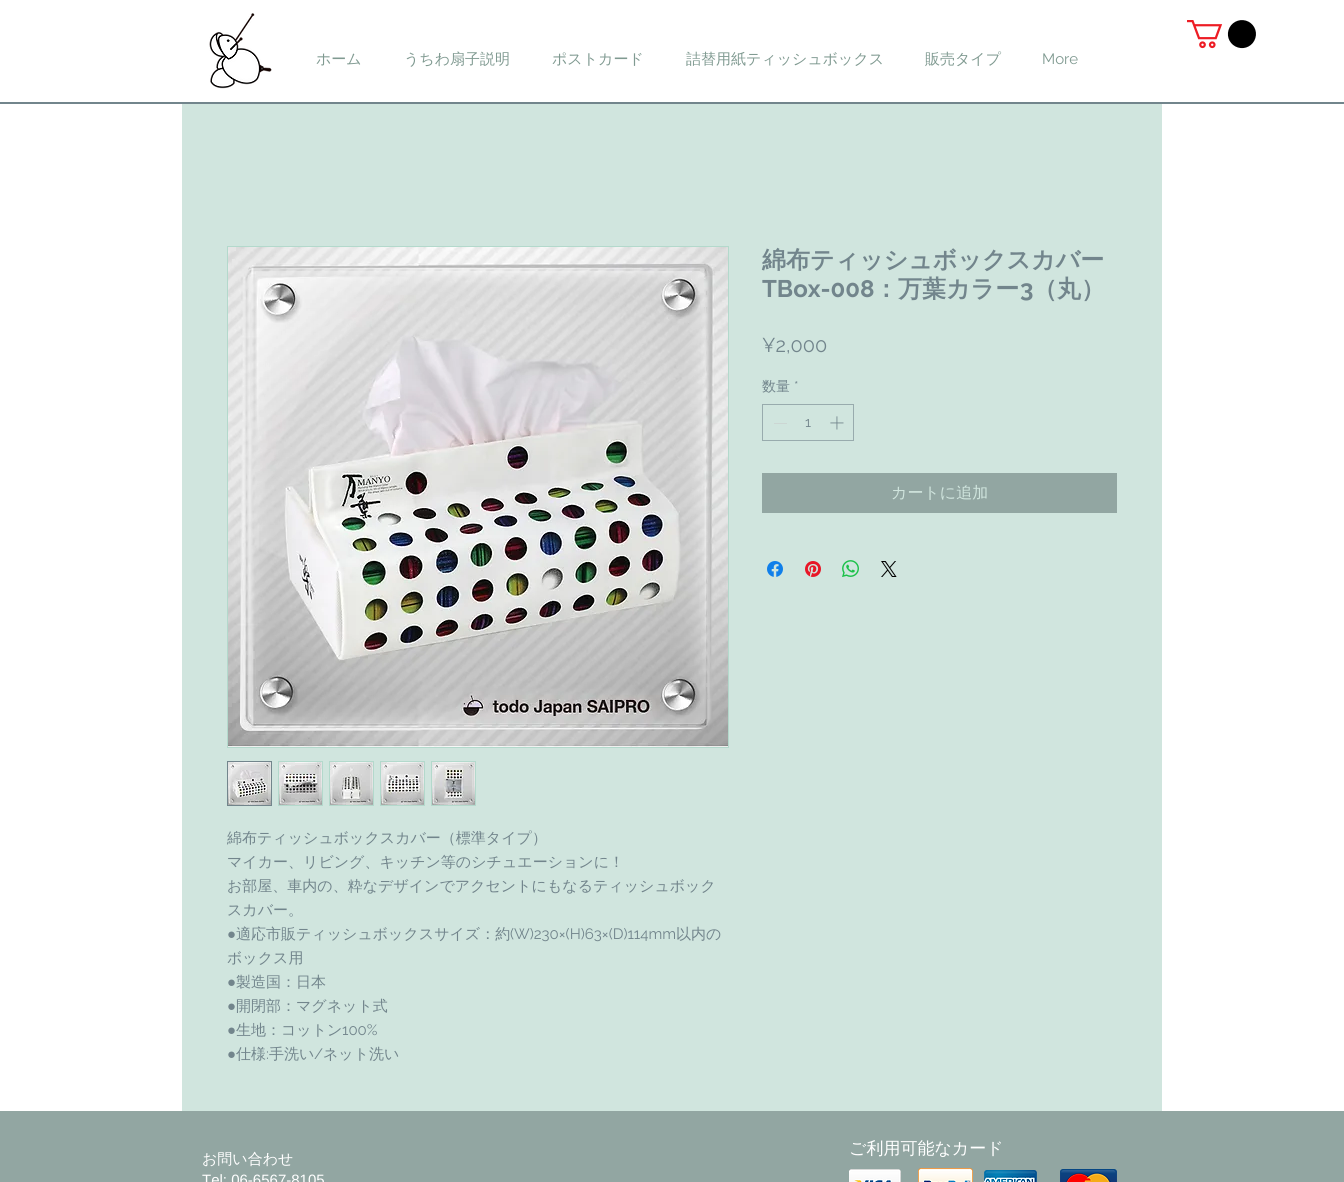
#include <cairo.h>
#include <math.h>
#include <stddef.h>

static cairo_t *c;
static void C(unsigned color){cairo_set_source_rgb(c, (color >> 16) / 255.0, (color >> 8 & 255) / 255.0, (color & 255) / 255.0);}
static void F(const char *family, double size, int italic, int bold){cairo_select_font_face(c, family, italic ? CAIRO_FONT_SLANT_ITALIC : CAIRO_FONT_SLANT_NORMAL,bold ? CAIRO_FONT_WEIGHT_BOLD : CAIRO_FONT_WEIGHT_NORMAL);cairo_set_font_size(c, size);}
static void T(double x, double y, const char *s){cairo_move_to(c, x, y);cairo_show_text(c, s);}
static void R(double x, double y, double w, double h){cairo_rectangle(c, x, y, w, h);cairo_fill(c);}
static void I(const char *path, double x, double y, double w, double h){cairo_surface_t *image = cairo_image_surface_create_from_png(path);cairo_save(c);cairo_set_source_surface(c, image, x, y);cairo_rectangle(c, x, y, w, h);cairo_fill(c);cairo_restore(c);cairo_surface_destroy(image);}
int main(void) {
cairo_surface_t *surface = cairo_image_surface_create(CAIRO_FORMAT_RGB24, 1344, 1182);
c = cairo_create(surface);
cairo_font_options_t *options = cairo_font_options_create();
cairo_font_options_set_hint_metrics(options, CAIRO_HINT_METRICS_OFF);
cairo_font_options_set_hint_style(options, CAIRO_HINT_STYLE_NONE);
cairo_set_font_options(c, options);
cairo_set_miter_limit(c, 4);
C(0xffffff);
cairo_paint(c);
I("1.png",209,13,63,76);
I("2.png",1187,20,69,29);
F("WenQuanYi Zen Hei Medium",15,0,0);
C(0x809a91);
T(316,64,"ホーム");
T(404,64,"うちわ扇子説明");
T(552,64,"ポストカード");
T(686,64,"詰替用紙ティッシュボックス");
T(925,64,"販売タイプ");
F("Raleway",15,0,0);
T(1042,64,"More");
C(0x72858c);
R(0,102,1344,2);
C(0xd0e5de);
R(182,104,980,1007);
F("WenQuanYi Zen Hei",24,0,1);
C(0x72858c);
T(762,268,"綿布ティッシュボックスカバー");
F("Raleway",24,0,1);
T(762,297,"TBox-008");
F("WenQuanYi Zen Hei",24,0,1);
T(874,297,"：万葉カラー");
F("Raleway",24,0,1);
T(1020,297,"3");
F("WenQuanYi Zen Hei",24,0,1);
T(1033,297,"（丸）");
F("Raleway",20,0,0);
T(762,352,"¥2,000");
F("WenQuanYi Zen Hei Medium",14,0,0);
T(762,391,"数量");
F("Raleway",14,0,0);
T(794,391,"*");
cairo_rectangle(c,762.5,404.5,91,36);
C(0x98abad);
cairo_set_line_width(c,1);
cairo_stroke(c);
C(0xccd6d3);
R(774,423,13,1);
C(0x72858c);
T(805,427,"1");
I("3.png",830,416,14,14);
C(0x92a6a2);
R(762,473,355,40);
F("WenQuanYi Zen Hei Medium",16,0,0);
C(0xd0e5de);
T(891,498,"カートに追加");
I("4.png",767,561,16,16);
I("5.png",805,561,16,16);
I("6.png",842,560,17,17);
I("7.png",881,561,16,16);
cairo_rectangle(c,227.5,246.5,501,501);
C(0xb3d9cc);
cairo_stroke(c);
I("8.png",228,247,500,500);
cairo_rectangle(c,227.5,761.5,44,44);
C(0x72858c);
cairo_stroke(c);
I("9.png",228,762,43,43);
cairo_rectangle(c,278.5,761.5,44,44);
C(0xb3d9cc);
cairo_stroke(c);
I("10.png",279,762,43,43);
cairo_rectangle(c,329.5,761.5,44,44);
cairo_stroke(c);
I("11.png",330,762,43,43);
cairo_rectangle(c,380.5,761.5,44,44);
cairo_stroke(c);
I("12.png",381,762,43,43);
cairo_rectangle(c,431.5,761.5,44,44);
cairo_stroke(c);
I("13.png",432,762,43,43);
F("WenQuanYi Zen Hei Medium",15,0,0);
C(0x72858c);
T(227,843,"綿布ティッシュボックスカバー（標準タイプ）");
T(227,867,"マイカー、リビング、キッチン等のシチュエーションに！");
T(227,891,"お部屋、車内の、粋なデザインでアクセントにもなるティッシュボック");
T(227,915,"スカバー。");
F("Liberation Sans",15,0,0);
T(227,939,"●");
F("WenQuanYi Zen Hei Medium",15,0,0);
T(236,939,"適応市販ティッシュボックスサイズ：約");
F("Raleway",15,0,0);
T(510,939,"(W)230×(H)63×(D)114mm");
F("WenQuanYi Zen Hei Medium",15,0,0);
T(676,939,"以内の");
T(227,963,"ボックス用");
F("Liberation Sans",15,0,0);
T(227,987,"●");
F("WenQuanYi Zen Hei Medium",15,0,0);
T(236,987,"製造国：日本");
F("Liberation Sans",15,0,0);
T(227,1011,"●");
F("WenQuanYi Zen Hei Medium",15,0,0);
T(236,1011,"開閉部：マグネット式");
F("Liberation Sans",15,0,0);
T(227,1035,"●");
F("WenQuanYi Zen Hei Medium",15,0,0);
T(236,1035,"生地：コットン");
F("Raleway",15,0,0);
T(342,1035,"100%");
F("Liberation Sans",15,0,0);
T(227,1059,"●");
F("WenQuanYi Zen Hei Medium",15,0,0);
T(236,1059,"仕様");
F("Raleway",15,0,0);
T(266,1059,":");
F("WenQuanYi Zen Hei Medium",15,0,0);
T(269,1059,"手洗い");
F("Raleway",15,0,0);
T(314,1059,"/");
F("WenQuanYi Zen Hei Medium",15,0,0);
T(323,1059,"ネット洗い");
C(0x92a6a2);
R(0,1111,1344,71);
F("WenQuanYi Zen Hei Medium",17,0,0);
C(0xffffff);
T(849,1154,"ご利用可能なカード");
F("WenQuanYi Zen Hei Medium",15,0,0);
T(202,1164,"お問い合わせ");
F("Liberation Sans",15,0,0);
T(202,1185,"Tel: 06-6567-8105");
I("14.png",849,1169,52,13);
I("15.png",918,1168,55,14);
I("16.png",984,1170,53,12);
I("17.png",1060,1169,57,13);
cairo_surface_write_to_png(surface, "o.png");
cairo_font_options_destroy(options);
cairo_destroy(c);
cairo_surface_destroy(surface);
return 0;
}
